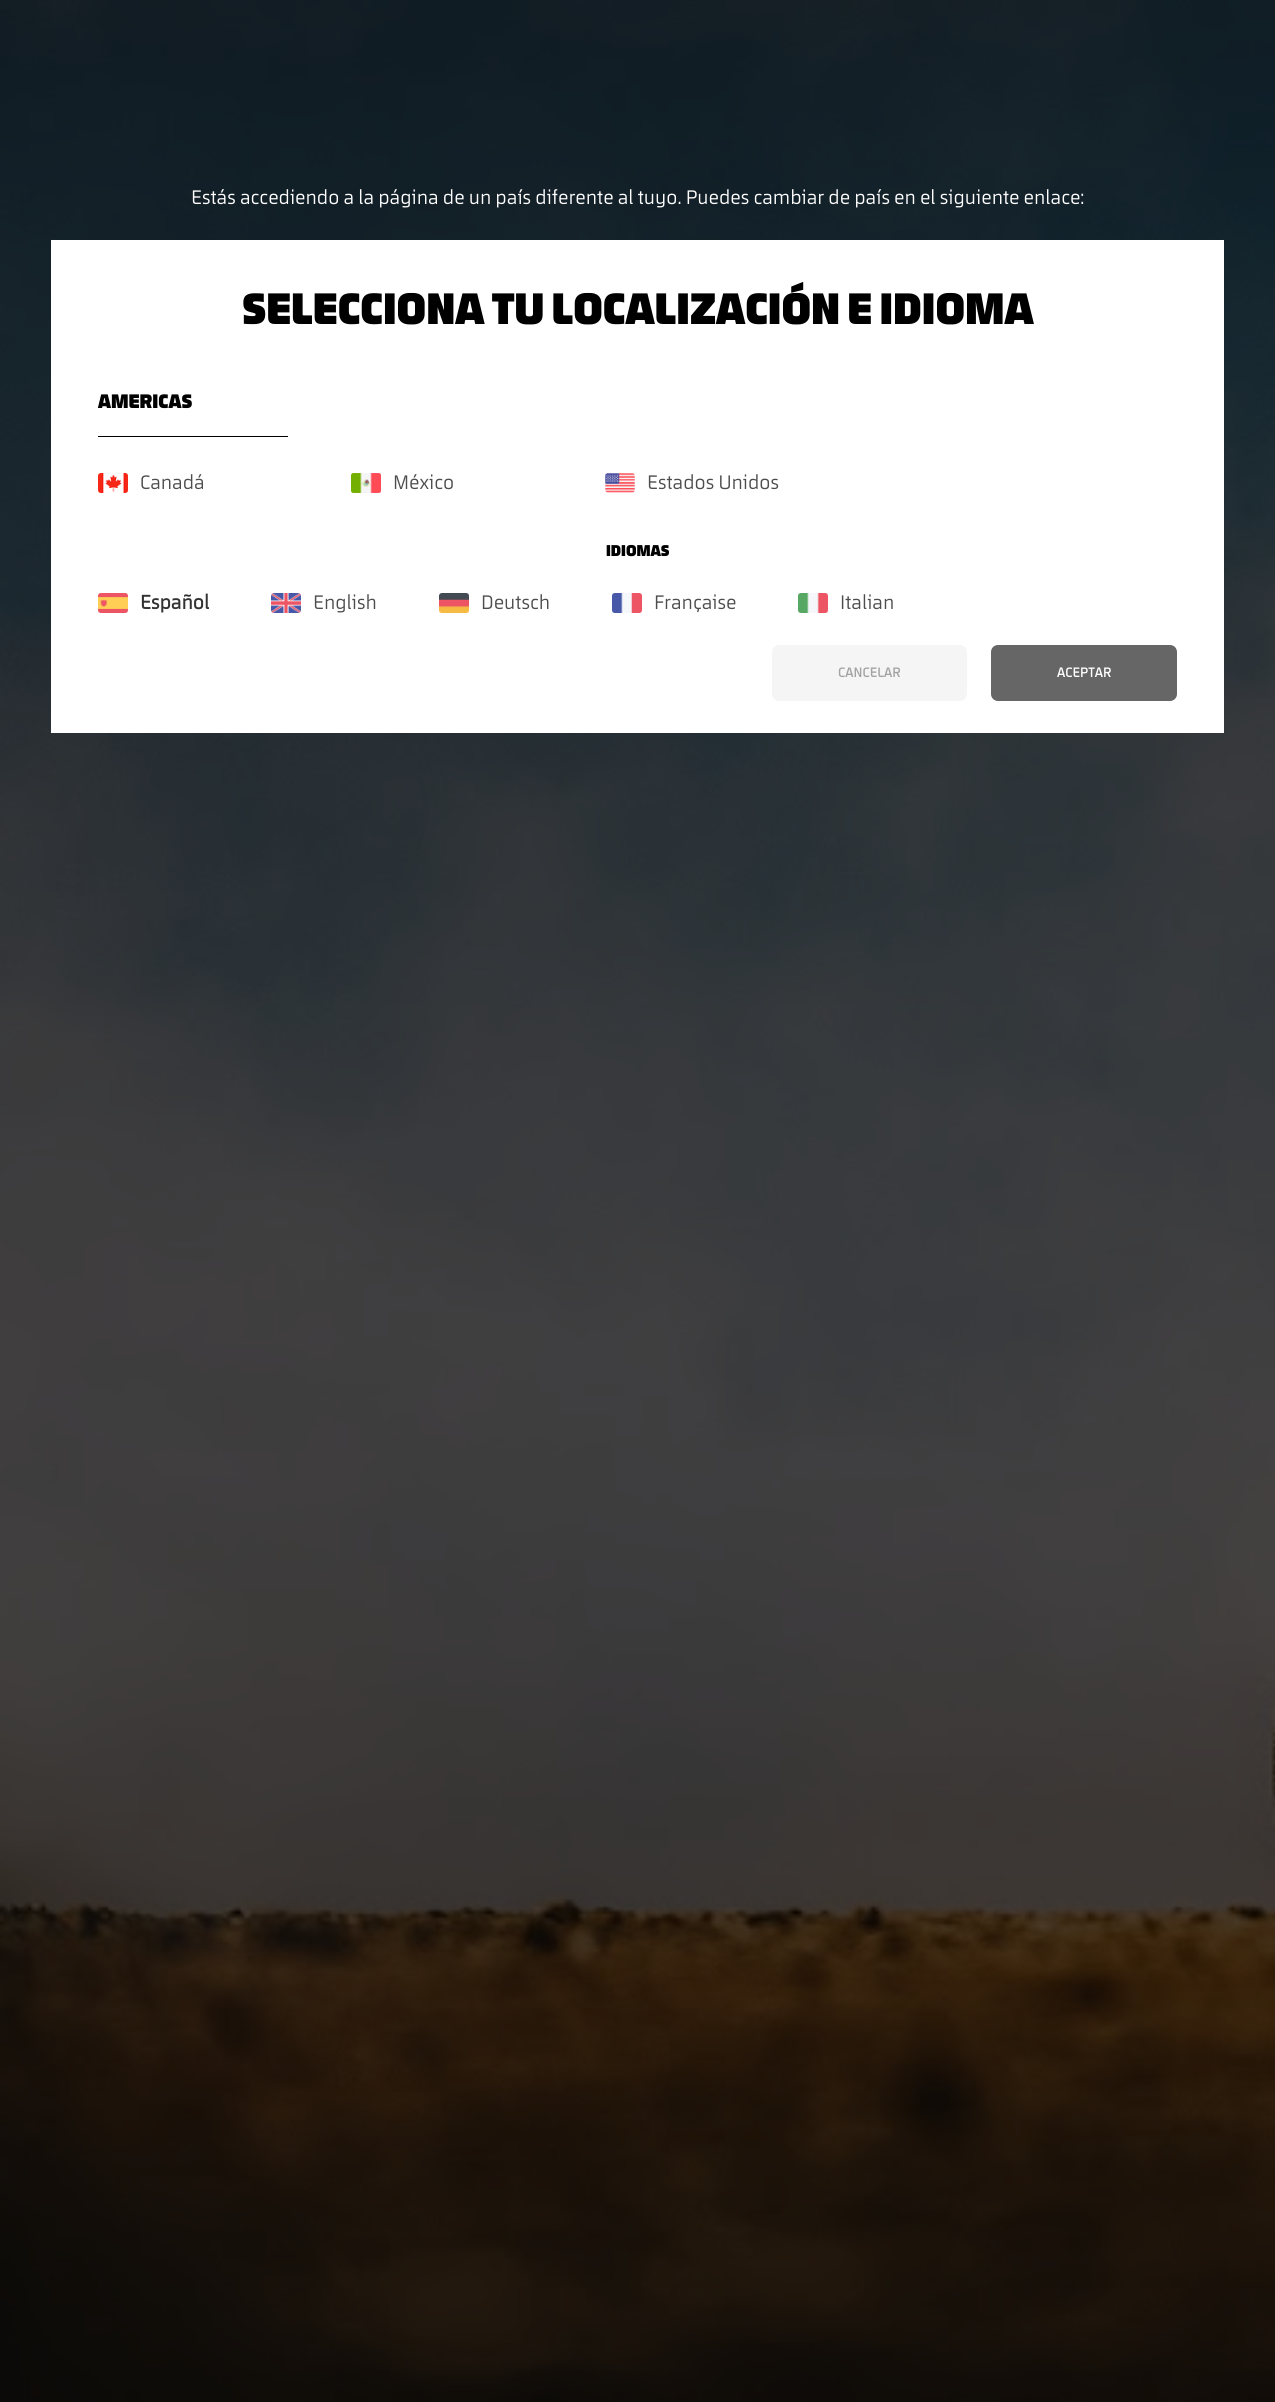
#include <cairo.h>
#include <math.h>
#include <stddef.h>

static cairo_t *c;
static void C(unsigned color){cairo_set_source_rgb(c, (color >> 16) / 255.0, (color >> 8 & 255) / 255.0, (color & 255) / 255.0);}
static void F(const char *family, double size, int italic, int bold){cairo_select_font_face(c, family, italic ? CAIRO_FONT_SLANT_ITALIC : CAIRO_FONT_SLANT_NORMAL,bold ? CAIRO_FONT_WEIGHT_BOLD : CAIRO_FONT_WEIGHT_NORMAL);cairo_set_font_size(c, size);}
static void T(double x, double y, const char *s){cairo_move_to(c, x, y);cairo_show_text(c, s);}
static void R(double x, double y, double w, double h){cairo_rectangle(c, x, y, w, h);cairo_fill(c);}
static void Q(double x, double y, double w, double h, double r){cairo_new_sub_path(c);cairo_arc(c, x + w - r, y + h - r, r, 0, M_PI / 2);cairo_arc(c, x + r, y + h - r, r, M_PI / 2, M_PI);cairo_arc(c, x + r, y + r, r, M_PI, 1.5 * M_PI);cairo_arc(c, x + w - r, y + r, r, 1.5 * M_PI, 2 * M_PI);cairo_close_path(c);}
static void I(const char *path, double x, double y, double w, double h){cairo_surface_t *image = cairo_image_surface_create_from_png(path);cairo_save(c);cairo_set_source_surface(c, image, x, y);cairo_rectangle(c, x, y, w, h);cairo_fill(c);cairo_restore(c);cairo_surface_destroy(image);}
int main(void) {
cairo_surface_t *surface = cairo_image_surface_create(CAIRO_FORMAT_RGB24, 1275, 2402);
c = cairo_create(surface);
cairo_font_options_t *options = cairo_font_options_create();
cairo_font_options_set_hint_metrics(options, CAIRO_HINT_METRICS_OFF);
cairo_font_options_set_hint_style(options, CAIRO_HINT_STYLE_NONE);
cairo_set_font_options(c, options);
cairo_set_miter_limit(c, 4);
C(0xffffff);
cairo_paint(c);
I("1.png",0,0,1275,2402);
F("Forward",20,0,0);
C(0xffffff);
T(191,204,"Estás accediendo a la página de un país diferente al tuyo. Puedes cambiar de país en el siguiente enlace:");
R(51,240,1173,493);
F("Forward Black",45,0,0);
C(0x000000);
T(242,324,"SELECCIONA TU LOCALIZACIÓN E IDIOMA");
F("Forward Black",20,0,0);
T(98,408,"AMERICAS");
R(98,436,190,1);
I("2.png",98,473,30,20);
F("Forward",20,0,0);
C(0x4d4d4d);
T(140,489,"Canadá");
I("3.png",351,473,30,20);
T(393,489,"México");
I("4.png",605,473,30,20);
T(647,489,"Estados Unidos");
F("Forward Black",16,0,0);
C(0x000000);
T(606,556,"IDIOMAS");
I("5.png",98,593,30,20);
F("Forward",20,0,1);
C(0x333333);
T(140,609,"Español");
I("6.png",271,593,30,20);
F("Forward",20,0,0);
C(0x4d4d4d);
T(313,609,"English");
I("7.png",439,593,30,20);
T(481,609,"Deutsch");
I("8.png",612,593,30,20);
T(654,609,"Française");
I("9.png",798,593,30,20);
T(840,609,"Italian");
C(0xf5f5f5);
Q(772,645,195,56,7);
cairo_fill(c);
F("Forward SemiBold",14,0,0);
C(0xa3a3a3);
T(838,677,"CANCELAR");
C(0x666666);
Q(992,646,184,54,6);
cairo_fill_preserve(c);
cairo_stroke(c);
C(0xffffff);
T(1057,677,"ACEPTAR");
cairo_surface_write_to_png(surface, "o.png");
cairo_font_options_destroy(options);
cairo_destroy(c);
cairo_surface_destroy(surface);
return 0;
}
